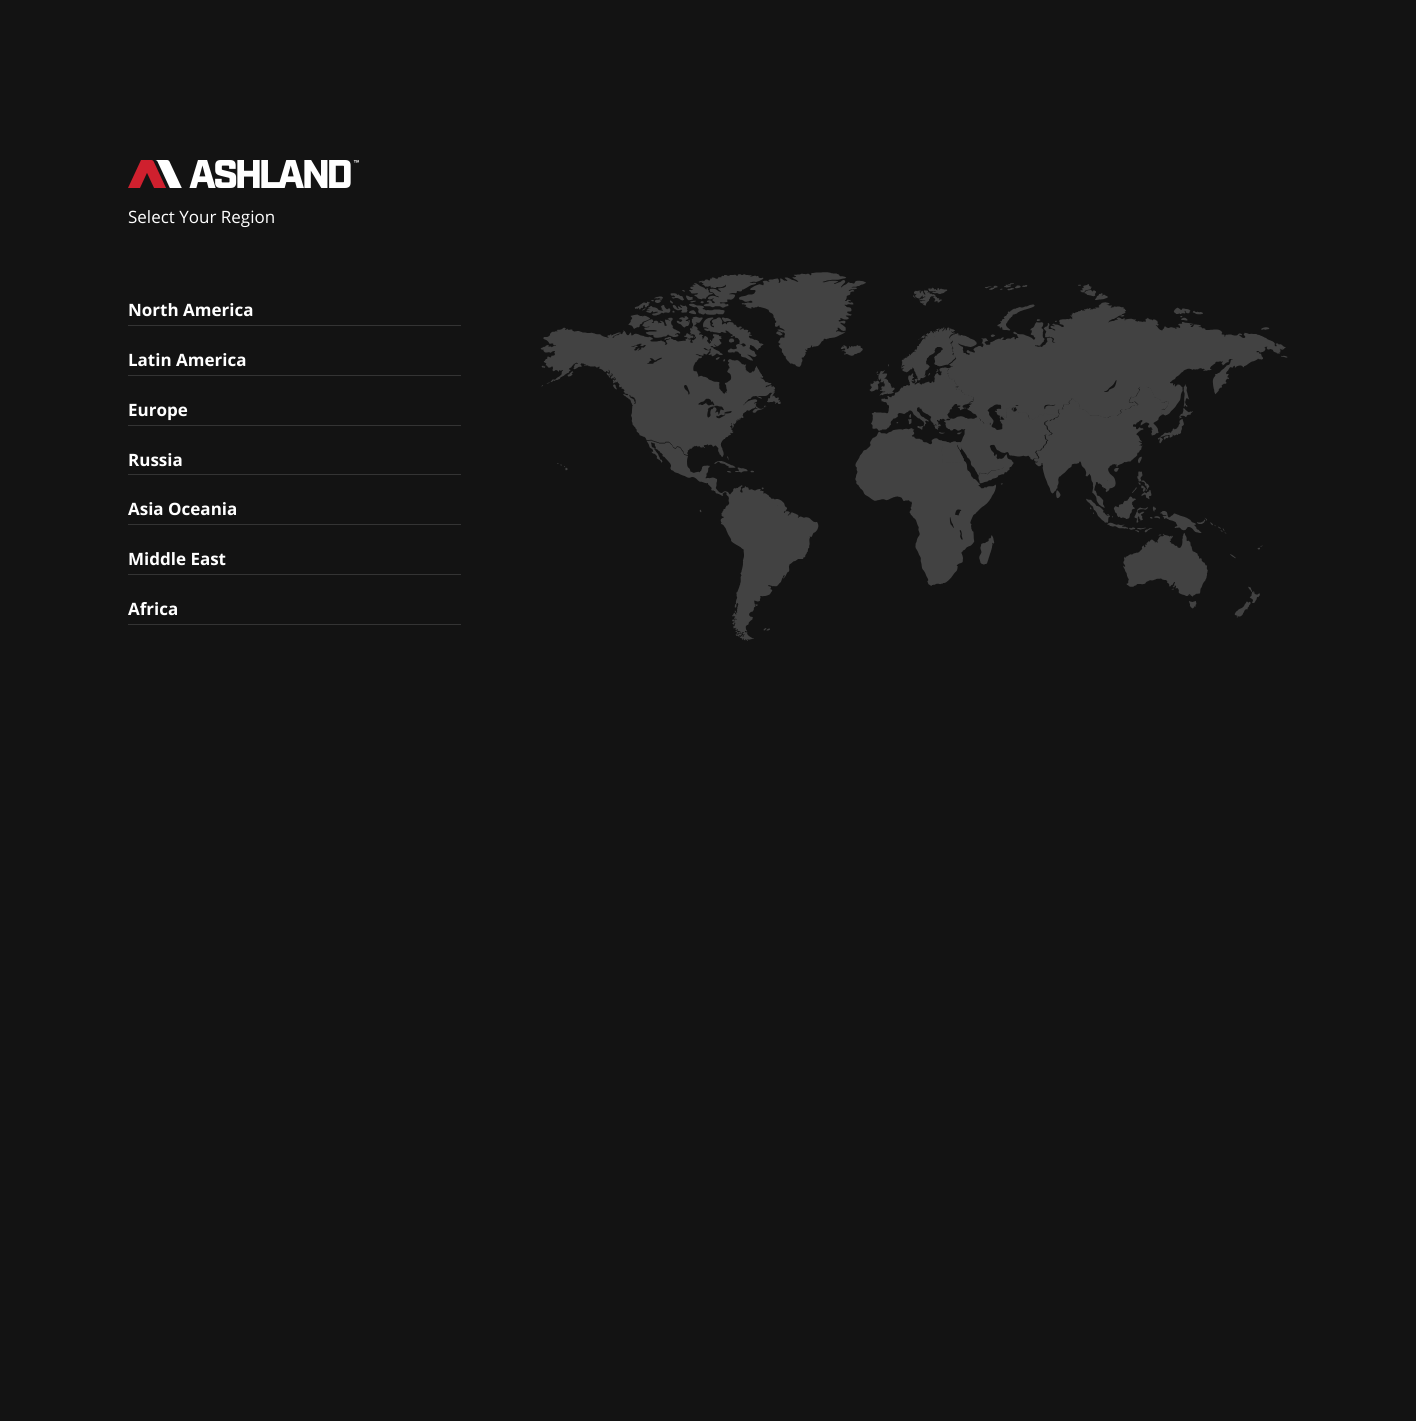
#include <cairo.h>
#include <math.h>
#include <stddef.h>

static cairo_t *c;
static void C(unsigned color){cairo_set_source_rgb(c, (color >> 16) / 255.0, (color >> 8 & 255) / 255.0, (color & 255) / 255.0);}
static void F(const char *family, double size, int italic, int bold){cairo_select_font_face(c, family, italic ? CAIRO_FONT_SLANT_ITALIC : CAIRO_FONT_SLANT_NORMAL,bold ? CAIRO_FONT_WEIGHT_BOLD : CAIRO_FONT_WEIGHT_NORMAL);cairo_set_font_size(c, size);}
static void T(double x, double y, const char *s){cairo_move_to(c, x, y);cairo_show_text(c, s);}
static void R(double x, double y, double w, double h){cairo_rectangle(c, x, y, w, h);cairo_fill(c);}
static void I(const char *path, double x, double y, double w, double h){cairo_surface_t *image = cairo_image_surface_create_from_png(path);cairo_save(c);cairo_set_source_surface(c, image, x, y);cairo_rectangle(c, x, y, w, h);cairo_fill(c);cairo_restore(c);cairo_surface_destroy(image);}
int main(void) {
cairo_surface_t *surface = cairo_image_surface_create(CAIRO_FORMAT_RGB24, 1416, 1421);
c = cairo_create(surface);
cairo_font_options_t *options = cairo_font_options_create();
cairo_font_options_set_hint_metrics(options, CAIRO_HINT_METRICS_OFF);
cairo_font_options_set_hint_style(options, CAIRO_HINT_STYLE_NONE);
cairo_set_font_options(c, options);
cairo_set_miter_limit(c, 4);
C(0x131313);
cairo_paint(c);
I("1.png",128,160,231,28);
F("Open Sans",17,0,0);
C(0xffffff);
T(128,223,"Select Your Region");
C(0x343434);
R(128,325,333,1);
F("Open Sans",17,0,1);
C(0xffffff);
T(128,316,"North America");
C(0x343434);
R(128,375,333,1);
C(0xffffff);
T(128,366,"Latin America");
C(0x343434);
R(128,425,333,1);
C(0xffffff);
T(128,416,"Europe");
C(0x343434);
R(128,474,333,1);
C(0xffffff);
T(128,466,"Russia");
C(0x343434);
R(128,524,333,1);
C(0xffffff);
T(128,515,"Asia Oceania");
C(0x343434);
R(128,574,333,1);
C(0xffffff);
T(128,565,"Middle East");
C(0x343434);
R(128,624,333,1);
C(0xffffff);
T(128,615,"Africa");
I("2.png",540,272,748,369);
cairo_surface_write_to_png(surface, "o.png");
cairo_font_options_destroy(options);
cairo_destroy(c);
cairo_surface_destroy(surface);
return 0;
}
